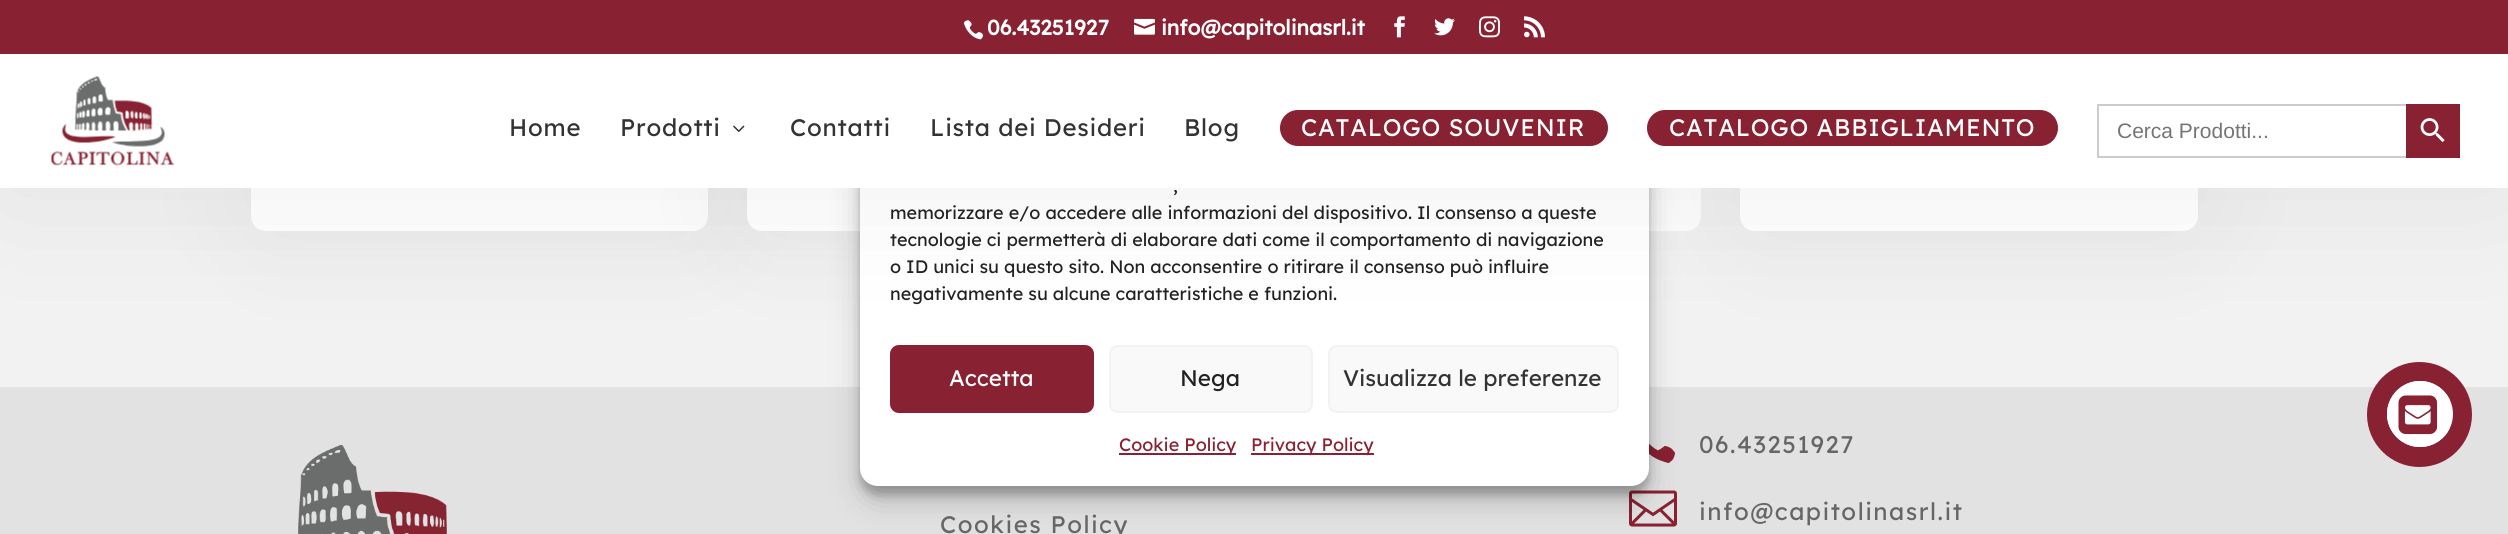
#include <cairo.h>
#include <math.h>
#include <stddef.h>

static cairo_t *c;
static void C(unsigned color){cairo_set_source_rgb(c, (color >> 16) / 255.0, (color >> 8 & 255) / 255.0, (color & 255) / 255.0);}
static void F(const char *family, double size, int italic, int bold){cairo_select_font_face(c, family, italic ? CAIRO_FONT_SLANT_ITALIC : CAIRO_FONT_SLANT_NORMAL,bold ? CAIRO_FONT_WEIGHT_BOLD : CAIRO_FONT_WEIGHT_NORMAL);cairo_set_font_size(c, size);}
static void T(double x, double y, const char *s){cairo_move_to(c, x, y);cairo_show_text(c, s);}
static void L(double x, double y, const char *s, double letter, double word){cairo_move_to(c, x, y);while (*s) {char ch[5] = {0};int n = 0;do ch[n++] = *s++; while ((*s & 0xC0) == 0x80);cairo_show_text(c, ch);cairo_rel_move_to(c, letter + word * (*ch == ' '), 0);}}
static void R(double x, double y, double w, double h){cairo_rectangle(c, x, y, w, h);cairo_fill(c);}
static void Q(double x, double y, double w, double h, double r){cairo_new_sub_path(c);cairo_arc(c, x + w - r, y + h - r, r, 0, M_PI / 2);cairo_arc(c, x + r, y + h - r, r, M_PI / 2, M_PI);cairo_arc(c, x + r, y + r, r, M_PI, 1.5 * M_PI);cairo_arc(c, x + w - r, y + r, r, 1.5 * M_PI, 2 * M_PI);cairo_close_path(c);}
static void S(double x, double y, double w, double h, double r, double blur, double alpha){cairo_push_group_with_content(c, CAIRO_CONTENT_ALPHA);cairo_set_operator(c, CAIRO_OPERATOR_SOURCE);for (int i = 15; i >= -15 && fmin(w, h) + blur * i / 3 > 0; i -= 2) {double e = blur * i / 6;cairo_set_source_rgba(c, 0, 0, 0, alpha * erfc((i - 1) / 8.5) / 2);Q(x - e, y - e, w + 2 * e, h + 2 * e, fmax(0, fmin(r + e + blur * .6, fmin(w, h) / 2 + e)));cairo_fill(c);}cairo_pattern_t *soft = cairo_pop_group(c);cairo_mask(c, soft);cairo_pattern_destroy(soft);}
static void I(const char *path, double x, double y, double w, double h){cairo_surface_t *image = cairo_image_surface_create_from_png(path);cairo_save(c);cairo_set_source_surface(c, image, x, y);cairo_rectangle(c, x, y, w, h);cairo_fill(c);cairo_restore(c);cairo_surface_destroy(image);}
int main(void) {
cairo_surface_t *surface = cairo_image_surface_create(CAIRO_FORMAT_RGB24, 2508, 534);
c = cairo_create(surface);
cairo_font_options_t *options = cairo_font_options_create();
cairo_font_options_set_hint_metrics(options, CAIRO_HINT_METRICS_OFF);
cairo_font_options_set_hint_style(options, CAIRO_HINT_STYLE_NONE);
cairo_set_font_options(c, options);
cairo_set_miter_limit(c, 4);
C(0xf2f2f2);
cairo_paint(c);
C(0x000000);
S(251,-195,457,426,15,60,.05);
C(0xffffff);
Q(251,-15,457,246,15);
cairo_fill(c);
C(0x000000);
S(747,-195,458,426,15,60,.05);
C(0xffffff);
Q(747,-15,458,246,15);
cairo_fill(c);
Q(1244,-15,457,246,15);
cairo_fill(c);
C(0x000000);
S(1740,-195,458,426,15,60,.05);
C(0xffffff);
Q(1740,-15,458,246,15);
cairo_fill(c);
C(0xe2e2e2);
R(0,387,2508,147);
I("11.png",1649,443,26,20);
I("12.png",1629,490,48,37);
C(0x000000);
S(860,57,789,438,18,4.5,.23);
S(860,63,789,438,18,15,.19);
C(0xffffff);
Q(860,48,789,438,18);
cairo_fill(c);
C(0x882131);
Q(891,346,202,66,8);
cairo_fill_preserve(c);
cairo_stroke(c);
C(0xf9f9f9);
Q(1110,346,202,66,8);
cairo_fill_preserve(c);
C(0xf2f2f2);
cairo_stroke(c);
C(0xf9f9f9);
Q(1329,346,289,66,8);
cairo_fill_preserve(c);
C(0xf2f2f2);
cairo_stroke(c);
C(0x882131);
cairo_arc(c,2419.5,414.5,52.5,0,2 * M_PI);
cairo_fill(c);
C(0xffffff);
cairo_arc(c,2420,414,33,0,2 * M_PI);
cairo_fill(c);
cairo_save(c);
Q(2387,381,66,66,33);
cairo_clip(c);
cairo_new_path(c);
cairo_move_to(c,2420,381);
cairo_line_to(c,2450,381);
cairo_line_to(c,2450,447);
cairo_line_to(c,2420,447);
cairo_curve_to(c,2402,447,2387,432,2387,414);
cairo_curve_to(c,2387,396,2402,381,2420,381);
cairo_close_path(c);
cairo_fill(c);
cairo_restore(c);
I("13.png",2398,395,40,40);
C(0x000000);
S(0,54,2508,134,0,75,.07);
C(0x882131);
R(0,0,2508,54);
I("1.png",963,20,21,20);
F("Lexend Deca",21,0,1);
C(0xffffff);
T(987,35,"06.43251927");
I("2.png",1134,18,21,17);
T(1161,35,"info@capitolinasrl.it");
I("3.png",1394,16,11,22);
I("4.png",1434,18,21,18);
I("5.png",1479,16,21,22);
I("6.png",1524,16,21,22);
R(0,54,2508,134);
I("7.png",51,76,124,90);
F("Lexend Deca",24,0,0);
C(0x333333);
L(509,136,"Home",.75,0);
L(620,136,"Prodotti",.75,0);
I("8.png",733,125,12,7);
L(790,136,"Contatti",.75,0);
L(930,136,"Lista dei Desideri",.75,0);
L(1184,136,"Blog",.75,0);
C(0x882131);
Q(1280,110,328,36,18);
cairo_fill(c);
C(0xffffff);
L(1301,136,"CATALOGO SOUVENIR",.75,0);
C(0x882131);
Q(1647,110,411,36,18);
cairo_fill(c);
C(0xffffff);
L(1669,136,"CATALOGO ABBIGLIAMENTO",.75,0);
C(0xcccccc);
R(2097,104,309,2);
R(2097,156,309,2);
R(2097,104,2,54);
F("Liberation Sans",21,0,0);
C(0x757575);
T(2117,138,"Cerca Prodotti...");
C(0x882131);
R(2406,104,54,54);
I("9.png",2420,118,25,25);
I("10.png",298,445,149,89);
F("Lexend Deca",24,0,0);
C(0x666666);
L(940,533,"Cookies Policy",1.5,0);
L(1699,453,"06.43251927",1.5,0);
L(1699,520,"info@capitolinasrl.it",1.5,0);
F("Lexend Deca",18,0,0);
C(0x222222);
T(1173,192,",");
T(890,219,"memorizzare e/o accedere alle informazioni del dispositivo. Il consenso a queste");
T(890,246,"tecnologie ci permetterà di elaborare dati come il comportamento di navigazione");
T(890,273,"o ID unici su questo sito. Non acconsentire o ritirare il consenso può influire");
T(890,300,"negativamente su alcune caratteristiche e funzioni.");
F("Lexend Deca",22.5,0,0);
C(0xffffff);
T(949,386,"Accetta");
C(0x222222);
T(1180,386,"Nega");
C(0x333333);
T(1343,386,"Visualizza le preferenze");
C(0x882131);
R(1119,453,117,2);
F("Lexend Deca",18,0,0);
T(1119,451,"Cookie Policy");
R(1251,453,123,2);
T(1251,451,"Privacy Policy");
cairo_surface_write_to_png(surface, "o.png");
cairo_font_options_destroy(options);
cairo_destroy(c);
cairo_surface_destroy(surface);
return 0;
}
